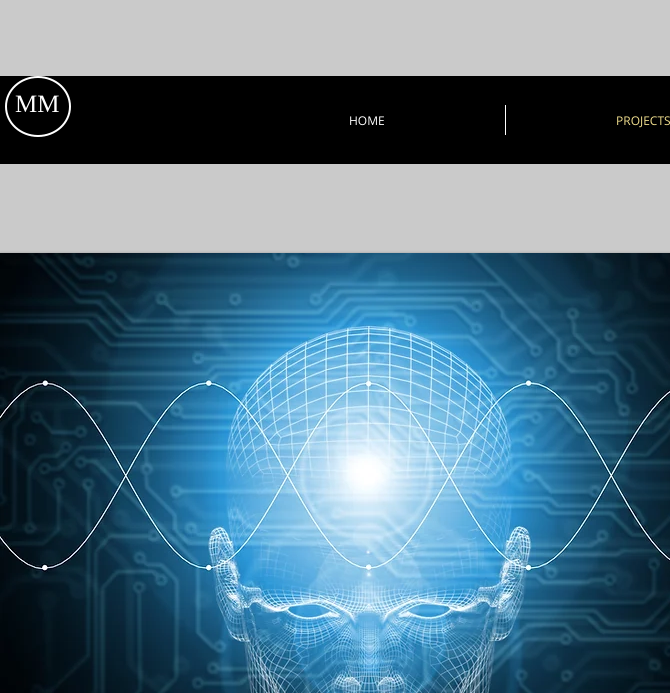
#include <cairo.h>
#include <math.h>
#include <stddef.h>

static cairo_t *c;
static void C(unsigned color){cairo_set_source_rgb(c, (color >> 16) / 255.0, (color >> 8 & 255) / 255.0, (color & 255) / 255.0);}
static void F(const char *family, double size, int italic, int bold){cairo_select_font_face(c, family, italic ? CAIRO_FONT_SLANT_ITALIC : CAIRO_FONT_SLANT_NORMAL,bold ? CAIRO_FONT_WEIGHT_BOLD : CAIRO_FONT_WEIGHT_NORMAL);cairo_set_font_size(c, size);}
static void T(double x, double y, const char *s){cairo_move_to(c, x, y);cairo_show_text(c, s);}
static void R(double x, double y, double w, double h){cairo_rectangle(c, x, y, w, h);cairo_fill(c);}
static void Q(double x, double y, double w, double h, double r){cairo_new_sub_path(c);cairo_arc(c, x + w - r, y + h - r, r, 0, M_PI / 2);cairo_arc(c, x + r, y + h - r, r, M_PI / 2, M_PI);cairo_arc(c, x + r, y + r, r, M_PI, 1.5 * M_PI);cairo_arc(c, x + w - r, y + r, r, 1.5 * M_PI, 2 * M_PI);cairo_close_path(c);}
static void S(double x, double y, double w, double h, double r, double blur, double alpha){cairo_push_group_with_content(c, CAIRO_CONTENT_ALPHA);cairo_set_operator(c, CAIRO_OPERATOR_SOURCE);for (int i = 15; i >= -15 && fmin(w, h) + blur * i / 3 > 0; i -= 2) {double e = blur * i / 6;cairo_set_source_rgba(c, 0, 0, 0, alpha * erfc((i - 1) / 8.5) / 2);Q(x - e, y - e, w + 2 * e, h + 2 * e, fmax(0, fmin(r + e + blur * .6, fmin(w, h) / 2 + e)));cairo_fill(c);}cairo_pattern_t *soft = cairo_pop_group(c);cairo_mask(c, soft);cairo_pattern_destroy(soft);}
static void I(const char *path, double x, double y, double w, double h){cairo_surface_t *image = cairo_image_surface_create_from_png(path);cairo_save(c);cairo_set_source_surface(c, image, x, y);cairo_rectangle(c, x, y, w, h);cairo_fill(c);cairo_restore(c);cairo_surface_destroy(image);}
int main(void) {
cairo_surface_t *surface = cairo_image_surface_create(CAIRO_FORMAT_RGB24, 670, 693);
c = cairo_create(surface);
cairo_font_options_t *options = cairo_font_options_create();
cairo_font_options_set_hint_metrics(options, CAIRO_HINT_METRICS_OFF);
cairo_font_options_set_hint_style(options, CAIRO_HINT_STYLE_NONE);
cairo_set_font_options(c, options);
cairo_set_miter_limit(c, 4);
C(0xcacaca);
cairo_paint(c);
C(0x000000);
R(0,76,670,88);
cairo_new_path(c);
cairo_move_to(c,38,77);
cairo_curve_to(c,55.5,77,70,90,70,106.5);
cairo_curve_to(c,70,123,55.5,136,38,136);
cairo_curve_to(c,20.5,136,6,123,6,106.5);
cairo_curve_to(c,6,90,20.5,77,38,77);
cairo_close_path(c);
C(0xffffff);
cairo_stroke(c);
F("Liberation Serif",25,0,0);
T(15,112,"MM");
F("Open Sans",12,0,0);
T(349,125,"HOME");
R(505,105,1,30);
C(0xefdd8d);
T(616,125,"PROJECTS");
C(0x000000);
S(0,254,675,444,0,1.5,.5);
I("1.png",0,253,670,440);
cairo_surface_write_to_png(surface, "o.png");
cairo_font_options_destroy(options);
cairo_destroy(c);
cairo_surface_destroy(surface);
return 0;
}
